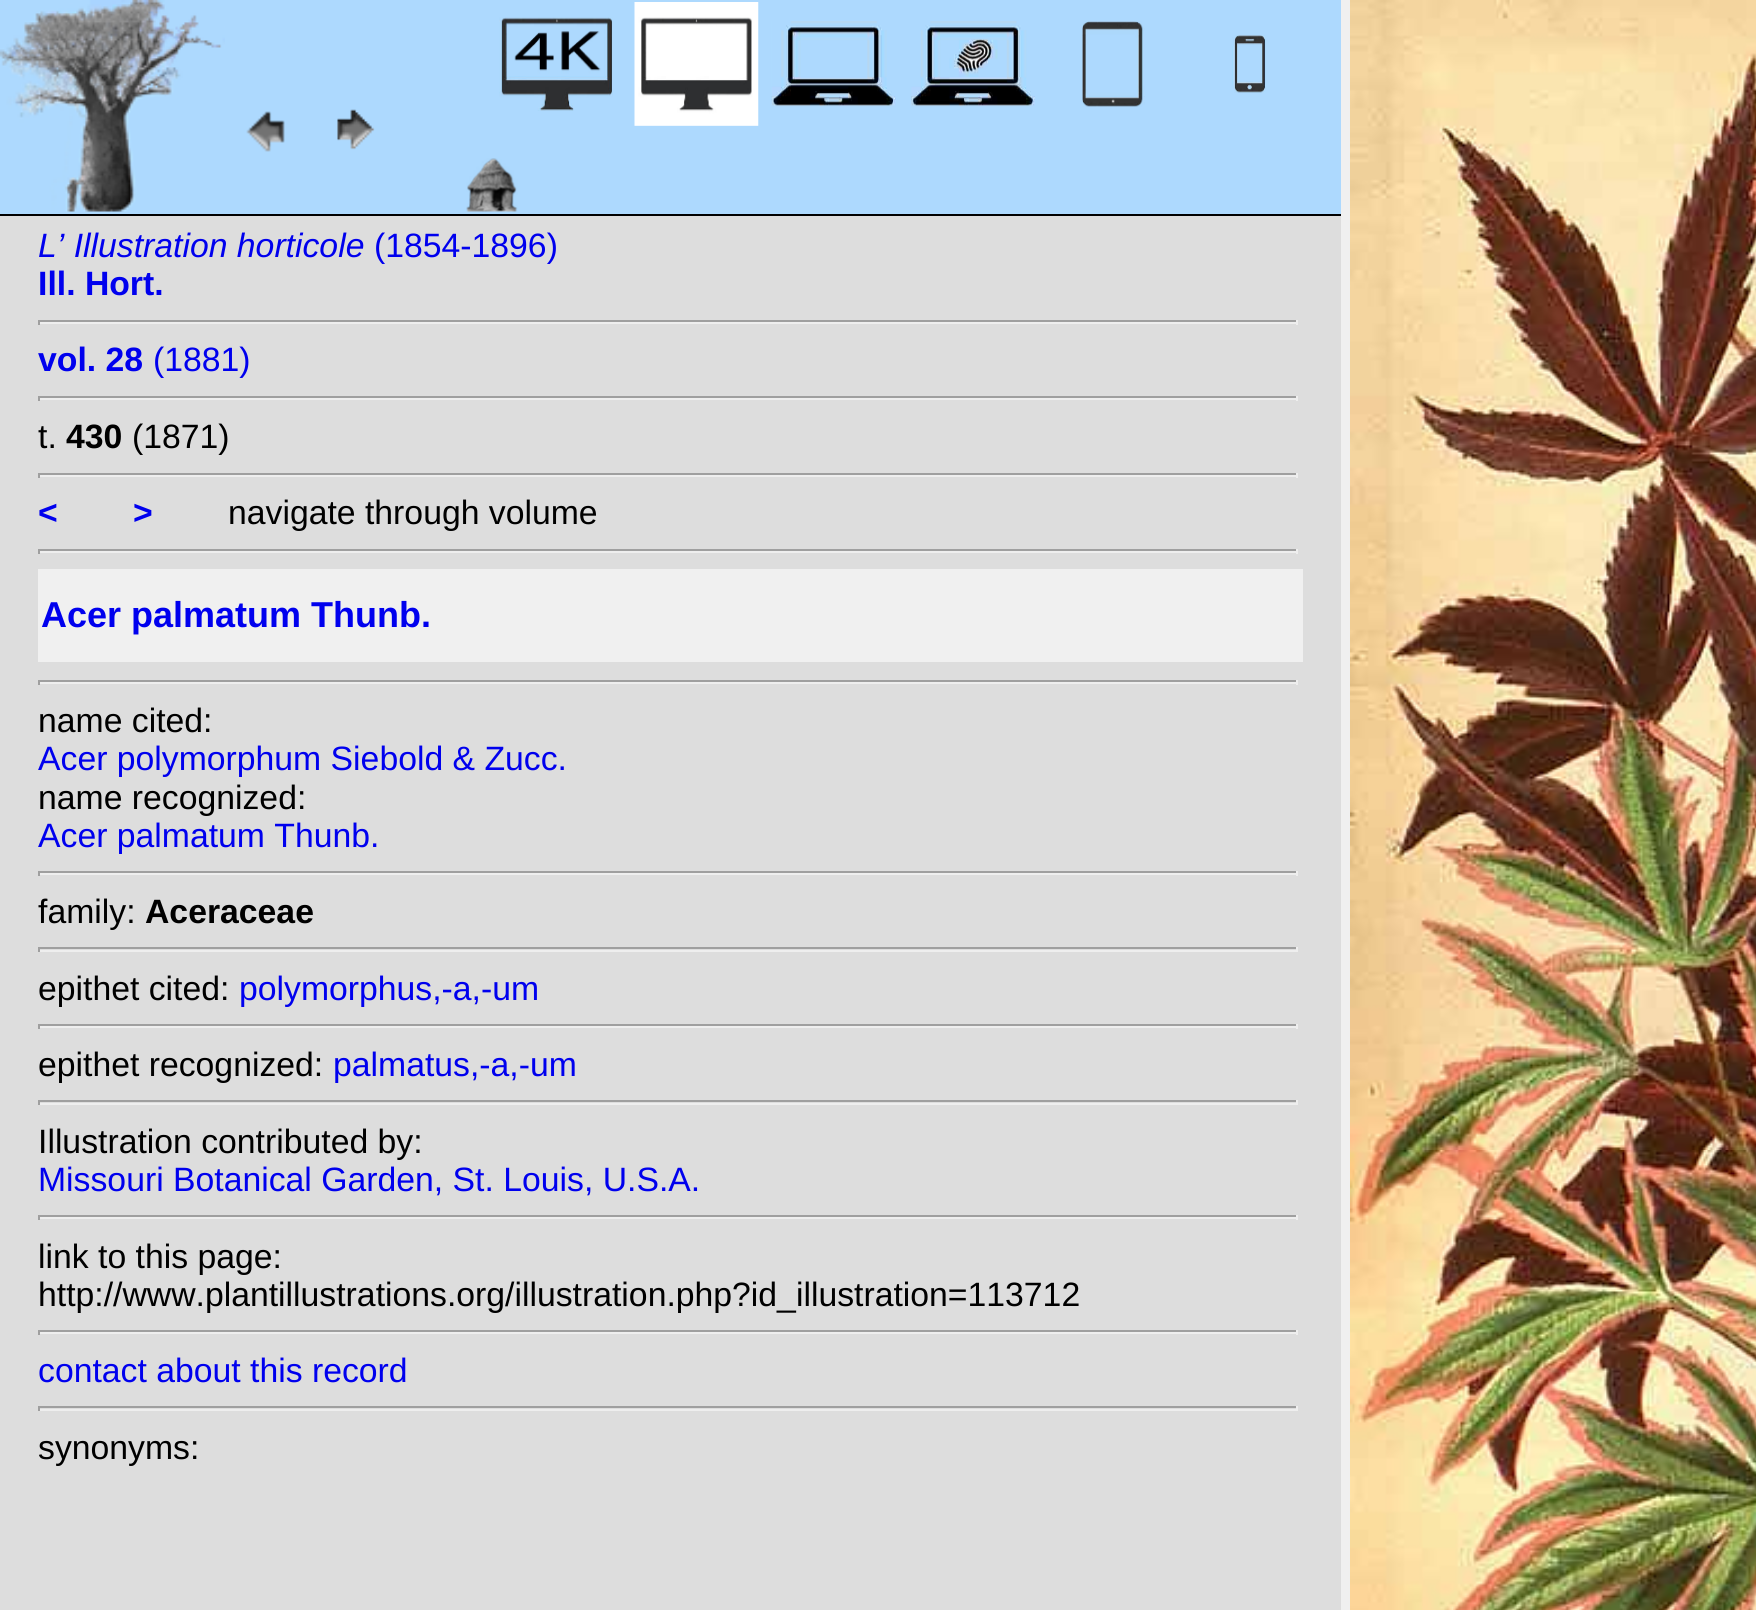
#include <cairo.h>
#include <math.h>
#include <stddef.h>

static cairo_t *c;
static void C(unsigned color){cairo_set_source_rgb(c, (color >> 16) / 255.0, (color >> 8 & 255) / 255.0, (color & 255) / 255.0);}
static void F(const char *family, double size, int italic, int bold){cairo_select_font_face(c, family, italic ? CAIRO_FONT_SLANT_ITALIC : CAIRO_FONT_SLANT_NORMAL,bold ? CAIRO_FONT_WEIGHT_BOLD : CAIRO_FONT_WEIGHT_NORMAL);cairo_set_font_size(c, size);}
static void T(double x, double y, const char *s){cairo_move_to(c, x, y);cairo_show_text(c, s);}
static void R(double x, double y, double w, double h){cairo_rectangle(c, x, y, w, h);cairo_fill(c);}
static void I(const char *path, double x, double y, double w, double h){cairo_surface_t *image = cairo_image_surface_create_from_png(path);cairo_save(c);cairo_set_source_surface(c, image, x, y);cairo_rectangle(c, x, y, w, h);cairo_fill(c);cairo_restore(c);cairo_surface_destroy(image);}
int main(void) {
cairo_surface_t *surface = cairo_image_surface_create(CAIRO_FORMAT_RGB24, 1756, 1610);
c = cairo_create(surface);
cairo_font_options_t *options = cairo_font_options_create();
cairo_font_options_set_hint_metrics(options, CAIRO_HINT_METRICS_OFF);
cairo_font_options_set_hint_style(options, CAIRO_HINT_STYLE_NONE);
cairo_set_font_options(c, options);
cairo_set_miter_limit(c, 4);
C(0xf0f0f0);
cairo_paint(c);
C(0xdddddd);
R(0,216,1341,1394);
C(0xadd9fe);
R(0,0,1341,214);
C(0x000000);
R(0,214,1341,2);
I("1.png",0,0,225,212);
I("2.png",246,111,39,41);
I("3.png",337,109,38,41);
I("4.png",499,17,114,94);
I("5.png",634,2,125,124);
I("6.png",771,21,125,86);
I("7.png",911,21,124,86);
I("8.png",1082,21,63,86);
I("9.png",1232,35,34,58);
I("10.png",466,158,52,54);
F("Liberation Sans",33.75,1,0);
C(0x0000ee);
T(38,257,"L’ Illustration horticole");
F("Liberation Sans",33.75,0,0);
T(374,257,"(1854-1896)");
F("Liberation Sans",33.75,0,1);
T(38,295,"Ill. Hort.");
C(0x9f9f9f);
R(38,320,1260,2);
C(0xeeeeee);
R(1296,320,2,5);
R(38,322,1260,2);
C(0x9f9f9f);
R(38,320,2,5);
C(0x0000ee);
T(38,371,"vol. 28");
F("Liberation Sans",33.75,0,0);
T(153,371,"(1881)");
C(0x9f9f9f);
R(38,396,1260,2);
C(0xeeeeee);
R(1296,396,2,5);
R(38,398,1260,2);
C(0x9f9f9f);
R(38,396,2,5);
C(0x000000);
T(38,448,"t.");
F("Liberation Sans",33.75,0,1);
T(66,448,"430");
F("Liberation Sans",33.75,0,0);
T(132,448,"(1871)");
C(0x9f9f9f);
R(38,473,1260,2);
C(0xeeeeee);
R(1296,473,2,5);
R(38,475,1260,2);
C(0x9f9f9f);
R(38,473,2,5);
F("Liberation Sans",33.75,0,1);
C(0x0000ee);
T(38,524,"<");
T(133,524,">");
F("Liberation Sans",33.75,0,0);
C(0x000000);
T(228,524,"navigate through volume");
C(0x9f9f9f);
R(38,549,1260,2);
C(0xeeeeee);
R(1296,549,2,5);
R(38,551,1260,2);
C(0x9f9f9f);
R(38,549,2,5);
C(0xf0f0f0);
R(38,569,1265,93);
F("Liberation Sans",36,0,1);
C(0x0000ee);
T(41,627,"Acer palmatum Thunb.");
C(0x9f9f9f);
R(38,680,1260,2);
C(0xeeeeee);
R(1296,680,2,5);
R(38,682,1260,2);
C(0x9f9f9f);
R(38,680,2,5);
F("Liberation Sans",33.75,0,0);
C(0x000000);
T(38,732,"name cited:");
C(0x0000ee);
T(38,770,"Acer polymorphum Siebold & Zucc.");
C(0x000000);
T(38,809,"name recognized:");
C(0x0000ee);
T(38,847,"Acer palmatum Thunb.");
C(0x9f9f9f);
R(38,871,1260,2);
C(0xeeeeee);
R(1296,871,2,5);
R(38,873,1260,2);
C(0x9f9f9f);
R(38,871,2,5);
C(0x000000);
T(38,923,"family:");
F("Liberation Sans",33.75,0,1);
T(145,923,"Aceraceae");
C(0x9f9f9f);
R(38,947,1260,2);
C(0xeeeeee);
R(1296,947,2,5);
R(38,950,1260,2);
C(0x9f9f9f);
R(38,947,2,5);
F("Liberation Sans",33.75,0,0);
C(0x000000);
T(38,1000,"epithet cited:");
C(0x0000ee);
T(239,1000,"polymorphus,-a,-um");
C(0x9f9f9f);
R(38,1024,1260,2);
C(0xeeeeee);
R(1296,1024,2,5);
R(38,1026,1260,2);
C(0x9f9f9f);
R(38,1024,2,5);
C(0x000000);
T(38,1076,"epithet recognized:");
C(0x0000ee);
T(333,1076,"palmatus,-a,-um");
C(0x9f9f9f);
R(38,1100,1260,2);
C(0xeeeeee);
R(1296,1100,2,5);
R(38,1103,1260,2);
C(0x9f9f9f);
R(38,1100,2,5);
C(0x000000);
T(38,1153,"Illustration contributed by:");
C(0x0000ee);
T(38,1191,"Missouri Botanical Garden, St. Louis, U.S.A.");
C(0x9f9f9f);
R(38,1215,1260,2);
C(0xeeeeee);
R(1296,1215,2,5);
R(38,1217,1260,2);
C(0x9f9f9f);
R(38,1215,2,5);
C(0x000000);
T(38,1268,"link to this page:");
T(38,1306,"http://www.plantillustrations.org/illustration.php?id_illustration=113712");
C(0x9f9f9f);
R(38,1330,1260,2);
C(0xeeeeee);
R(1296,1330,2,5);
R(38,1332,1260,2);
C(0x9f9f9f);
R(38,1330,2,5);
C(0x0000ee);
T(38,1382,"contact about this record");
C(0x9f9f9f);
R(38,1406,1260,2);
C(0xeeeeee);
R(1296,1406,2,5);
R(38,1409,1260,2);
C(0x9f9f9f);
R(38,1406,2,5);
C(0x000000);
T(38,1459,"synonyms:");
I("11.png",1350,0,406,1610);
cairo_surface_write_to_png(surface, "o.png");
cairo_font_options_destroy(options);
cairo_destroy(c);
cairo_surface_destroy(surface);
return 0;
}
